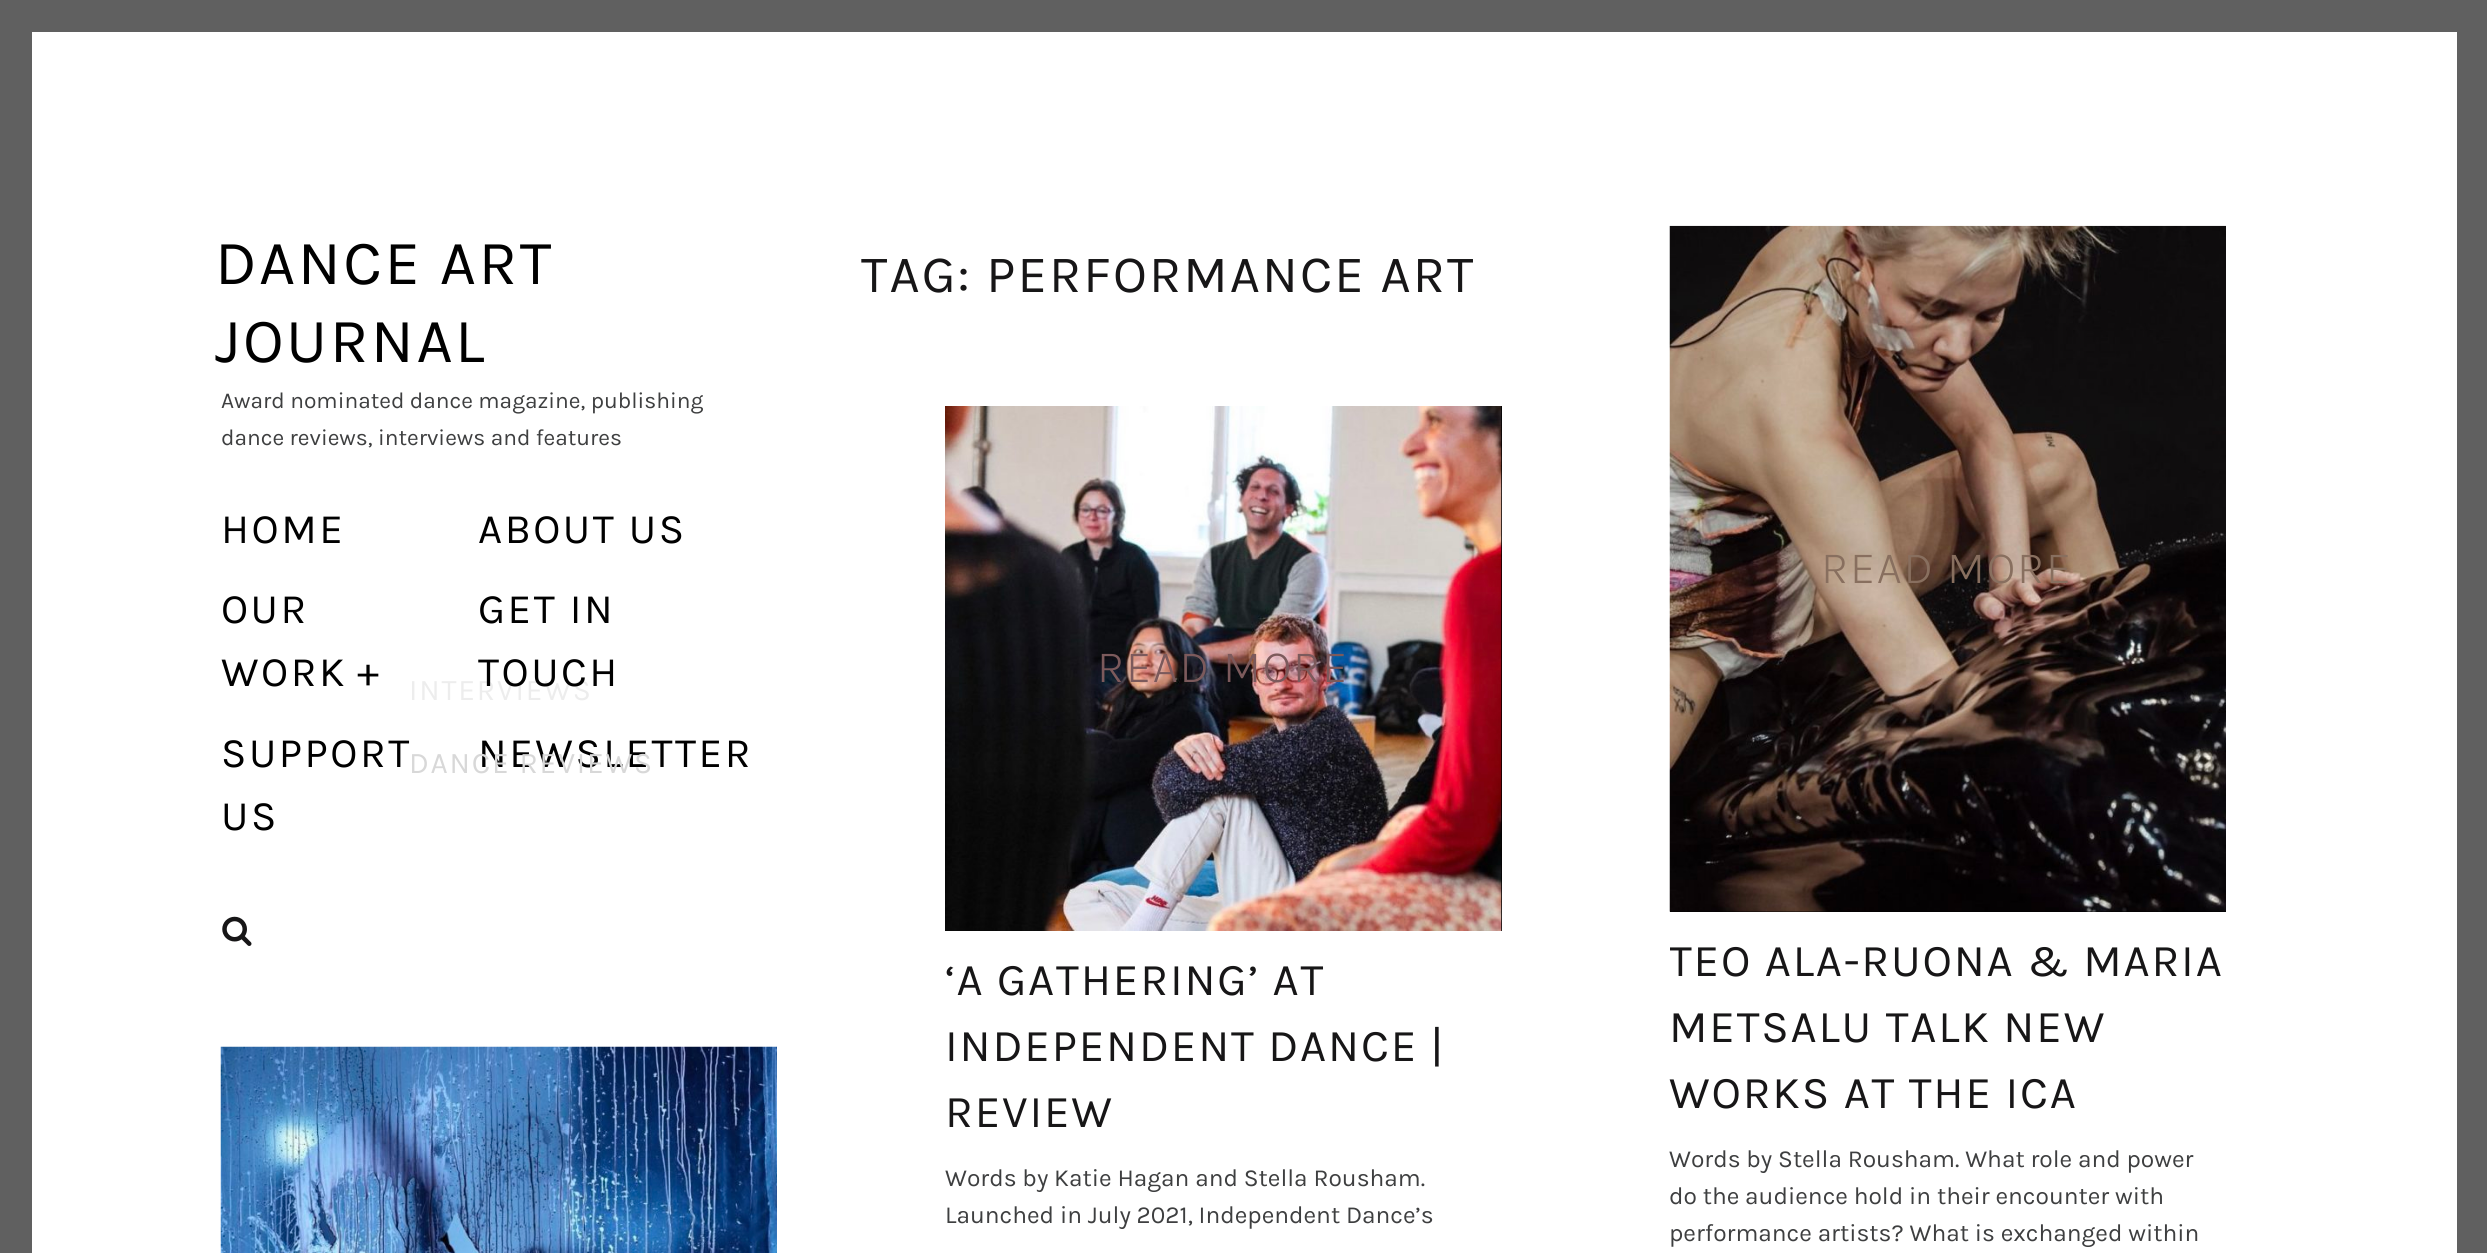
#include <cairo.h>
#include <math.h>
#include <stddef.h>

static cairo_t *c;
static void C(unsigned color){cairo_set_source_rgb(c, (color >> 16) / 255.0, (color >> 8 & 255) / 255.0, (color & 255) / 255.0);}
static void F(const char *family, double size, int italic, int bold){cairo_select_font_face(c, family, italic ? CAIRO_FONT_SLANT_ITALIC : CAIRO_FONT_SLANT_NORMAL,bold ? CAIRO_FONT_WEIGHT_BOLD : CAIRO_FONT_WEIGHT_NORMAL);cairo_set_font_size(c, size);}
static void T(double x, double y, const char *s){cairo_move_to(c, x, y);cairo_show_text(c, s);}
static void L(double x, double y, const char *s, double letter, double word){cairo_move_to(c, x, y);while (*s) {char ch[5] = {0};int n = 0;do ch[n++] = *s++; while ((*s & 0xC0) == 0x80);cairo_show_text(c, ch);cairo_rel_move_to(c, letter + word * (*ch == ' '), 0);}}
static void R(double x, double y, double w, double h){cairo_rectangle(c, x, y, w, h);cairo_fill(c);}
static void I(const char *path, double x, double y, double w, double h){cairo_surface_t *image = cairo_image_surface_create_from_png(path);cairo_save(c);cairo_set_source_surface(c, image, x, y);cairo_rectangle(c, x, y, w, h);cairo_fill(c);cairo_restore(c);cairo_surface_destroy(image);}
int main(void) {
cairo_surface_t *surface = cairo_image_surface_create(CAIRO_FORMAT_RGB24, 2487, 1253);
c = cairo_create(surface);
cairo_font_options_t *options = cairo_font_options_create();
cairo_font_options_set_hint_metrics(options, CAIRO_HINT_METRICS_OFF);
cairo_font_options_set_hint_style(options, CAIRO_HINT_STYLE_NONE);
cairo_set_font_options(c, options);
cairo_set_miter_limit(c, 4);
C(0xffffff);
cairo_paint(c);
C(0x606060);
R(32,0,2425,32);
R(2457,0,30,1253);
R(0,0,32,1253);
F("Karla",63,0,0);
C(0x000000);
L(215,284,"DANCE ART",2.5,0);
L(215,362,"JOURNAL",2.5,0);
F("Karla",22.75,0,0);
C(0x3e3f40);
T(221,408,"Award nominated dance magazine, publishing");
T(221,445,"dance reviews, interviews and features");
F("Karla",42,0,0);
C(0x000000);
L(221,543,"HOME",2.5,0);
L(478,543,"ABOUT US",2.5,0);
L(221,623,"OUR",2.5,0);
L(221,686,"WORK",2.5,0);
L(357,686,"+",2.5,0);
F("Karla",30,0,0);
C(0xededed);
L(409,700,"INTERVIEWS",1.75,0);
F("Karla",42,0,0);
C(0x000000);
L(478,767,"NEWSLETTER",2.5,0);
F("Karla",30,0,0);
C(0xd8d8d8);
L(409,773,"DANCE REVIEWS",1.75,0);
F("Karla",42,0,0);
C(0x000000);
L(478,623,"GET IN",2.5,0);
L(478,686,"TOUCH",2.5,0);
L(221,767,"SUPPORT",2.5,0);
L(221,830,"US",2.5,0);
I("1.png",222,916,30,30);
F("Karla",52.5,0,0);
C(0x171617);
L(861,292,"TAG: PERFORMANCE ART",2.1,0);
I("2.png",220,1046,557,207);
C(0x000000);
R(1501,406,1,525);
I("3.png",945,406,557,525);
F("Karla Light",45.5,0,0);
C(0x7c5a5c);
L(1097,682,"READ MORE",1.8,0);
F("Karla",45.5,0,0);
C(0x171617);
L(945,995,"‘A GATHERING’ AT",1.8,0);
L(945,1061,"INDEPENDENT DANCE |",1.8,0);
L(945,1127,"REVIEW",1.8,0);
F("Karla",24.5,0,0);
C(0x3e3f40);
T(945,1186,"Words by Katie Hagan and Stella Rousham.");
T(945,1223,"Launched in July 2021, Independent Dance’s");
C(0x000000);
R(1670,911,556,1);
I("4.png",1669,225,557,687);
F("Karla Light",45.5,0,0);
C(0x886f5f);
L(1821,583,"READ MORE",1.8,0);
cairo_save(c);
cairo_rectangle(c,1670,929,556,198);
cairo_clip(c);
F("Karla",45.5,0,0);
C(0x171617);
L(1669,976,"TEO ALA-RUONA & MARIA",1.8,0);
cairo_restore(c);
F("Karla",45.5,0,0);
C(0x171617);
L(1669,1042,"METSALU TALK NEW",1.8,0);
L(1669,1108,"WORKS AT THE ICA",1.8,0);
F("Karla",24.5,0,0);
C(0x3e3f40);
T(1669,1167,"Words by Stella Rousham. What role and power");
T(1669,1204,"do the audience hold in their encounter with");
T(1669,1241,"performance artists? What is exchanged within");
cairo_surface_write_to_png(surface, "o.png");
cairo_font_options_destroy(options);
cairo_destroy(c);
cairo_surface_destroy(surface);
return 0;
}
